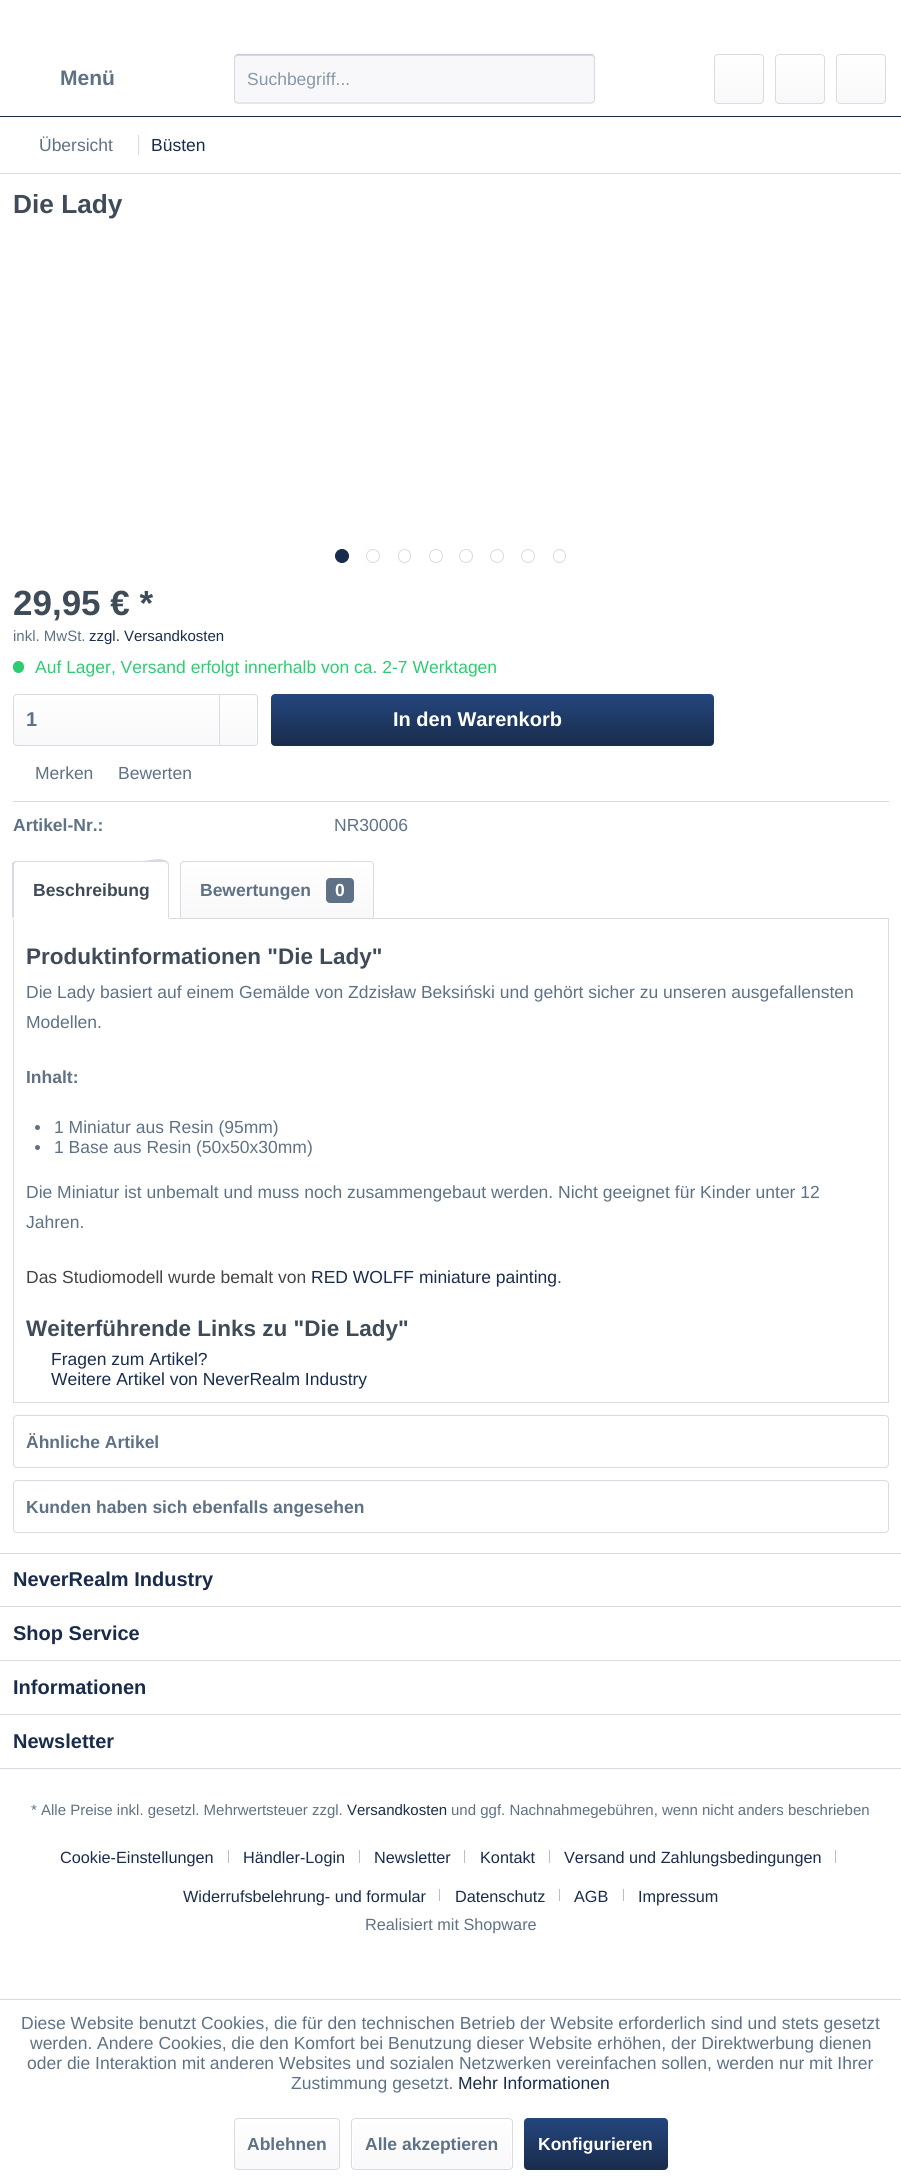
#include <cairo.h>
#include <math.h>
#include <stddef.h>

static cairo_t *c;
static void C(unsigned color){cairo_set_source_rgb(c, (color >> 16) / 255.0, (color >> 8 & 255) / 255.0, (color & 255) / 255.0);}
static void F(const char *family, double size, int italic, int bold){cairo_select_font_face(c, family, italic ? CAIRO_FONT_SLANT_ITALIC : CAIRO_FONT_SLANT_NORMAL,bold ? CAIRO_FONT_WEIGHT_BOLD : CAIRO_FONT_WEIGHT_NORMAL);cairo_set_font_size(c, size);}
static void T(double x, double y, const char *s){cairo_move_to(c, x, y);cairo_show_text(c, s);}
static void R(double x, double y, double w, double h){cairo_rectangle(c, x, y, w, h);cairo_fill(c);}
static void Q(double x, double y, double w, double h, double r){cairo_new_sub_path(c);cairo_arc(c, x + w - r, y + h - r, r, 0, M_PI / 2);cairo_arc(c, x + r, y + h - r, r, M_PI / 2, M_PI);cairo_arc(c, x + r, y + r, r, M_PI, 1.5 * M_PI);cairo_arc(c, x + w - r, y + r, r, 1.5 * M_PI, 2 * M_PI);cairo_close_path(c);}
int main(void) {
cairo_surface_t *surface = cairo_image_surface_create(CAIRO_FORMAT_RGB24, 901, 2182);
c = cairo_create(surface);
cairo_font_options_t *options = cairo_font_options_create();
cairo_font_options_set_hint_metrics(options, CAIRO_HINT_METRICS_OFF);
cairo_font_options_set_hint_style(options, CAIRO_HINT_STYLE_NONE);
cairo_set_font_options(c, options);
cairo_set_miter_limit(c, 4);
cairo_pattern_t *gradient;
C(0xffffff);
cairo_paint(c);
C(0x192c4c);
R(0,116,901,1);
F("Liberation Sans",21,0,1);
C(0x5f7285);
T(60,85,"Menü");
C(0xf8f8fa);
Q(234,54,361,50,4);
cairo_fill(c);
C(0xdadae5);
cairo_new_path(c);
cairo_move_to(c,238,56);
cairo_line_to(c,591,56);
cairo_curve_to(c,593,56,594,57,594,59);
cairo_line_to(c,594,56);
cairo_line_to(c,592,55);
cairo_line_to(c,238,55);
cairo_curve_to(c,235,55,235,57,235,59);
cairo_curve_to(c,235,57,236,56,238,56);
cairo_close_path(c);
cairo_fill(c);
cairo_new_path(c);
cairo_move_to(c,235.5,55.5);
cairo_line_to(c,237.5,54.5);
cairo_line_to(c,592,54.5);
cairo_line_to(c,593.5,55.5);
C(0xcbcbdb);
cairo_set_line_width(c,1.2);
cairo_stroke(c);
cairo_new_path(c);
cairo_move_to(c,593.5,55.5);
cairo_line_to(c,594.5,57.5);
cairo_line_to(c,594.5,100);
cairo_line_to(c,593.5,102);
cairo_line_to(c,591,103);
cairo_line_to(c,237.5,103);
cairo_line_to(c,235.5,102);
cairo_line_to(c,234.5,100);
cairo_line_to(c,234.5,57.5);
cairo_line_to(c,235.5,55.5);
C(0xdadae5);
cairo_stroke(c);
F("Liberation Sans",17.5,0,0);
C(0x8798a9);
T(247,85,"Suchbegriff...");
gradient = cairo_pattern_create_linear(739,55,739,103);
cairo_pattern_add_color_stop_rgba(gradient,0,1,1,1,1);
cairo_pattern_add_color_stop_rgba(gradient,1,0.973,0.973,0.98,1);
cairo_set_source(c,gradient);
cairo_pattern_destroy(gradient);
Q(715,55,48,48,2.5);
cairo_fill(c);
Q(714.5,54.5,49,49,3.5);
C(0xdadae5);
cairo_set_line_width(c,1);
cairo_stroke(c);
gradient = cairo_pattern_create_linear(800,55,800,103);
cairo_pattern_add_color_stop_rgba(gradient,0,1,1,1,1);
cairo_pattern_add_color_stop_rgba(gradient,1,0.973,0.973,0.98,1);
cairo_set_source(c,gradient);
cairo_pattern_destroy(gradient);
Q(776,55,48,48,2.5);
cairo_fill(c);
Q(775.5,54.5,49,49,3.5);
C(0xdadae5);
cairo_stroke(c);
gradient = cairo_pattern_create_linear(861,55,861,103);
cairo_pattern_add_color_stop_rgba(gradient,0,1,1,1,1);
cairo_pattern_add_color_stop_rgba(gradient,1,0.973,0.973,0.98,1);
cairo_set_source(c,gradient);
cairo_pattern_destroy(gradient);
Q(838,55,47,48,2.5);
cairo_fill(c);
Q(836.5,54.5,49,49,3.5);
C(0xdadae5);
cairo_stroke(c);
R(0,173,901,1);
C(0x5f7285);
T(39,151,"Übersicht");
C(0xdadae5);
R(138,135,1,20);
C(0x192c4c);
T(151,151,"Büsten");
F("Liberation Sans",26.25,0,1);
C(0x3f4c58);
T(13,213,"Die Lady");
C(0x192c4c);
cairo_new_path(c);
cairo_arc(c,342,556,6.5,0,2 * M_PI);
cairo_fill_preserve(c);
cairo_stroke(c);
cairo_arc(c,373,556,6.5,0,2 * M_PI);
C(0xdadae5);
cairo_stroke(c);
Q(398.5,549.5,12,13,6);
cairo_stroke(c);
cairo_arc(c,436,556,6.5,0,2 * M_PI);
cairo_stroke(c);
cairo_arc(c,466,556,6.5,0,2 * M_PI);
cairo_stroke(c);
cairo_arc(c,497,556,6.5,0,2 * M_PI);
cairo_stroke(c);
cairo_arc(c,528,556,6.5,0,2 * M_PI);
cairo_stroke(c);
Q(553.5,549.5,12,13,6);
cairo_stroke(c);
F("Liberation Sans",35,0,1);
C(0x3f4c58);
T(13,615,"29,95 € *");
F("Liberation Sans",15,0,0);
C(0x5f7285);
T(13,641,"inkl. MwSt.");
C(0x192c4c);
T(89,641,"zzgl. Versandkosten");
C(0x2ecc71);
Q(13,661,11,12,5.5);
cairo_fill(c);
F("Liberation Sans",17.5,0,0);
T(35,673,"Auf Lager, Versand erfolgt innerhalb von ca. 2-7 Werktagen");
gradient = cairo_pattern_create_linear(135,695,135,745);
cairo_pattern_add_color_stop_rgba(gradient,0,1,1,1,1);
cairo_pattern_add_color_stop_rgba(gradient,1,0.973,0.973,0.98,1);
cairo_set_source(c,gradient);
cairo_pattern_destroy(gradient);
Q(14,695,242,50,2.5);
cairo_fill(c);
Q(13.5,694.5,244,51,3.5);
C(0xdadae5);
cairo_stroke(c);
F("Liberation Sans",20,0,1);
C(0x5f7285);
T(26,726,"1");
C(0xdadae5);
R(219,695,1,50);
gradient = cairo_pattern_create_linear(493,694,493,746);
cairo_pattern_add_color_stop_rgba(gradient,0,0.141,0.275,0.494,1);
cairo_pattern_add_color_stop_rgba(gradient,1,0.098,0.173,0.298,1);
cairo_set_source(c,gradient);
cairo_pattern_destroy(gradient);
Q(271,694,443,52,4);
cairo_fill(c);
C(0xffffff);
T(393,726,"In den Warenkorb");
C(0xdadae5);
R(13,801,876,1);
F("Liberation Sans",17.5,0,0);
C(0x5f7285);
T(35,779,"Merken");
T(118,779,"Bewerten");
F("Liberation Sans",17.5,0,1);
T(13,831,"Artikel-Nr.:");
F("Liberation Sans",17.5,0,0);
T(334,831,"NR30006");
cairo_rectangle(c,13.5,918.5,875,484);
C(0xdadae5);
cairo_stroke(c);
C(0xffffff);
cairo_new_path(c);
cairo_move_to(c,17,861);
cairo_line_to(c,165,861);
cairo_curve_to(c,167,861,169,863,169,865);
cairo_line_to(c,169,919);
cairo_line_to(c,13,919);
cairo_line_to(c,13,865);
cairo_curve_to(c,13,863,15,861,17,861);
cairo_close_path(c);
cairo_fill(c);
C(0xdadae5);
cairo_new_path(c);
cairo_move_to(c,16,862);
cairo_line_to(c,15,863);
cairo_line_to(c,13,862);
cairo_line_to(c,15,861);
cairo_line_to(c,141,861);
cairo_curve_to(c,150,861,161,856,168,862);
cairo_line_to(c,167,863);
cairo_line_to(c,165,862);
cairo_close_path(c);
cairo_fill(c);
cairo_new_path(c);
cairo_move_to(c,168,862);
cairo_line_to(c,169,864);
cairo_line_to(c,169,919);
cairo_line_to(c,168,918);
cairo_line_to(c,168,865);
cairo_line_to(c,167,863);
cairo_close_path(c);
cairo_fill(c);
C(0xffffff);
cairo_new_path(c);
cairo_move_to(c,169,919);
cairo_line_to(c,168,918);
cairo_line_to(c,14,918);
cairo_line_to(c,14,917);
cairo_line_to(c,12,919);
cairo_close_path(c);
cairo_fill(c);
C(0xdadae5);
cairo_new_path(c);
cairo_move_to(c,12,919);
cairo_line_to(c,12,863);
cairo_line_to(c,13,862);
cairo_line_to(c,15,863);
cairo_line_to(c,14,865);
cairo_line_to(c,14,917);
cairo_close_path(c);
cairo_fill(c);
F("Liberation Sans",17.5,0,1);
C(0x3f4c58);
T(33,896,"Beschreibung");
gradient = cairo_pattern_create_linear(277,863,277,918);
cairo_pattern_add_color_stop_rgba(gradient,0,1,1,1,1);
cairo_pattern_add_color_stop_rgba(gradient,1,0.973,0.973,0.98,1);
cairo_set_source(c,gradient);
cairo_pattern_destroy(gradient);
cairo_new_path(c);
cairo_move_to(c,183.5,863);
cairo_line_to(c,370.5,863);
cairo_curve_to(c,372,863,373,864,373,865.5);
cairo_line_to(c,373,918);
cairo_line_to(c,181,918);
cairo_line_to(c,181,865.5);
cairo_curve_to(c,181,864,182,863,183.5,863);
cairo_close_path(c);
cairo_fill(c);
cairo_new_path(c);
cairo_move_to(c,184,861.5);
cairo_line_to(c,370,861.5);
cairo_curve_to(c,372,861.5,373.5,863,373.5,865);
cairo_line_to(c,373.5,918.5);
cairo_line_to(c,180.5,918.5);
cairo_line_to(c,180.5,865);
cairo_curve_to(c,180.5,863,182,861.5,184,861.5);
cairo_close_path(c);
C(0xdadae5);
cairo_stroke(c);
C(0x5f7285);
T(200,896,"Bewertungen");
Q(326,878,28,25,4);
cairo_fill(c);
C(0xffffff);
T(335,896,"0");
F("Liberation Sans",22.5,0,1);
C(0x3f4c58);
T(26,964,"Produktinformationen \"Die Lady\"");
F("Liberation Sans",17.5,0,0);
C(0x5f7285);
T(26,998,"Die Lady basiert auf einem Gemälde von Zdzisław Beksiński und gehört sicher zu unseren ausgefallensten");
T(26,1028,"Modellen.");
F("Liberation Sans",17.5,0,1);
T(26,1083,"Inhalt:");
cairo_new_path(c);
cairo_arc(c,37.5,1127.5,2.5,0,2 * M_PI);
cairo_fill(c);
F("Liberation Sans",17.5,0,0);
T(54,1133,"1 Miniatur aus Resin (95mm)");
cairo_new_path(c);
cairo_arc(c,37.5,1147.5,2.5,0,2 * M_PI);
cairo_fill(c);
T(54,1153,"1 Base aus Resin (50x50x30mm)");
T(26,1198,"Die Miniatur ist unbemalt und muss noch zusammengebaut werden. Nicht geeignet für Kinder unter 12");
T(26,1228,"Jahren.");
C(0x444444);
T(26,1283,"Das Studiomodell wurde bemalt von");
C(0x192c4c);
T(311,1283,"RED WOLFF miniature painting");
C(0x444444);
T(557,1283,".");
F("Liberation Sans",22.5,0,1);
C(0x3f4c58);
T(26,1336,"Weiterführende Links zu \"Die Lady\"");
F("Liberation Sans",17.5,0,0);
C(0x192c4c);
T(51,1365,"Fragen zum Artikel?");
T(51,1385,"Weitere Artikel von NeverRealm Industry");
Q(13.5,1415.5,875,52,3.5);
C(0xdadae5);
cairo_stroke(c);
F("Liberation Sans",17.5,0,1);
C(0x5f7285);
T(26,1448,"Ähnliche Artikel");
Q(13.5,1480.5,875,52,3.5);
C(0xdadae5);
cairo_stroke(c);
C(0x5f7285);
T(26,1513,"Kunden haben sich ebenfalls angesehen");
C(0xdadae5);
R(0,1553,901,1);
F("Liberation Sans",20,0,1);
C(0x192c4c);
T(13,1586,"NeverRealm Industry");
C(0xdadae5);
R(0,1606,901,1);
C(0x192c4c);
T(13,1640,"Shop Service");
C(0xdadae5);
R(0,1660,901,1);
C(0x192c4c);
T(13,1694,"Informationen");
C(0xdadae5);
R(0,1714,901,1);
R(0,1768,901,1);
C(0x192c4c);
T(13,1748,"Newsletter");
F("Liberation Sans",15,0,0);
C(0x5f7285);
T(31,1815,"* Alle Preise inkl. gesetzl. Mehrwertsteuer zzgl.");
C(0x192c4c);
T(347,1815,"Versandkosten");
C(0x5f7285);
T(451,1815,"und ggf. Nachnahmegebühren, wenn nicht anders beschrieben");
F("Liberation Sans",16.25,0,0);
C(0x192c4c);
T(60,1863,"Cookie-Einstellungen");
C(0xbcbcd0);
R(228,1850,1,13);
C(0x192c4c);
T(243,1863,"Händler-Login");
C(0xbcbcd0);
R(359,1850,1,13);
C(0x192c4c);
T(374,1863,"Newsletter");
C(0xbcbcd0);
R(464,1850,1,13);
C(0x192c4c);
T(480,1863,"Kontakt");
C(0xbcbcd0);
R(549,1850,1,13);
C(0x192c4c);
T(564,1863,"Versand und Zahlungsbedingungen");
C(0xbcbcd0);
R(835,1850,1,13);
C(0x192c4c);
T(183,1902,"Widerrufsbelehrung- und formular");
C(0xbcbcd0);
R(439,1889,1,12);
C(0x192c4c);
T(455,1902,"Datenschutz");
C(0xbcbcd0);
R(559,1889,1,12);
C(0x192c4c);
T(574,1902,"AGB");
C(0xbcbcd0);
R(623,1889,1,12);
C(0x192c4c);
T(638,1902,"Impressum");
C(0x5f7285);
T(365,1930,"Realisiert mit Shopware");
C(0xdadae5);
R(0,1999,901,1);
F("Liberation Sans",17.5,0,0);
C(0x5f7285);
T(21,2029,"Diese Website benutzt Cookies, die für den technischen Betrieb der Website erforderlich sind und stets gesetzt");
T(30,2049,"werden. Andere Cookies, die den Komfort bei Benutzung dieser Website erhöhen, der Direktwerbung dienen");
T(27,2069,"oder die Interaktion mit anderen Websites und sozialen Netzwerken vereinfachen sollen, werden nur mit Ihrer");
T(291,2089,"Zustimmung gesetzt.");
C(0x192c4c);
T(458,2089,"Mehr Informationen");
gradient = cairo_pattern_create_linear(287,2119,287,2169);
cairo_pattern_add_color_stop_rgba(gradient,0,1,1,1,1);
cairo_pattern_add_color_stop_rgba(gradient,1,0.973,0.973,0.98,1);
cairo_set_source(c,gradient);
cairo_pattern_destroy(gradient);
Q(235,2119,104,50,2.5);
cairo_fill(c);
Q(234.5,2118.5,105,51,3.5);
C(0xdadae5);
cairo_stroke(c);
F("Liberation Sans",17.5,0,1);
C(0x5f7285);
T(247,2150,"Ablehnen");
gradient = cairo_pattern_create_linear(432,2119,432,2169);
cairo_pattern_add_color_stop_rgba(gradient,0,1,1,1,1);
cairo_pattern_add_color_stop_rgba(gradient,1,0.973,0.973,0.98,1);
cairo_set_source(c,gradient);
cairo_pattern_destroy(gradient);
Q(353,2119,158,50,2.5);
cairo_fill(c);
Q(351.5,2118.5,161,51,3.5);
C(0xdadae5);
cairo_stroke(c);
C(0x5f7285);
T(365,2150,"Alle akzeptieren");
gradient = cairo_pattern_create_linear(596,2118,596,2170);
cairo_pattern_add_color_stop_rgba(gradient,0,0.141,0.275,0.494,1);
cairo_pattern_add_color_stop_rgba(gradient,1,0.098,0.173,0.298,1);
cairo_set_source(c,gradient);
cairo_pattern_destroy(gradient);
Q(524,2118,144,52,4);
cairo_fill(c);
C(0xffffff);
T(538,2150,"Konfigurieren");
cairo_surface_write_to_png(surface, "o.png");
cairo_font_options_destroy(options);
cairo_destroy(c);
cairo_surface_destroy(surface);
return 0;
}
